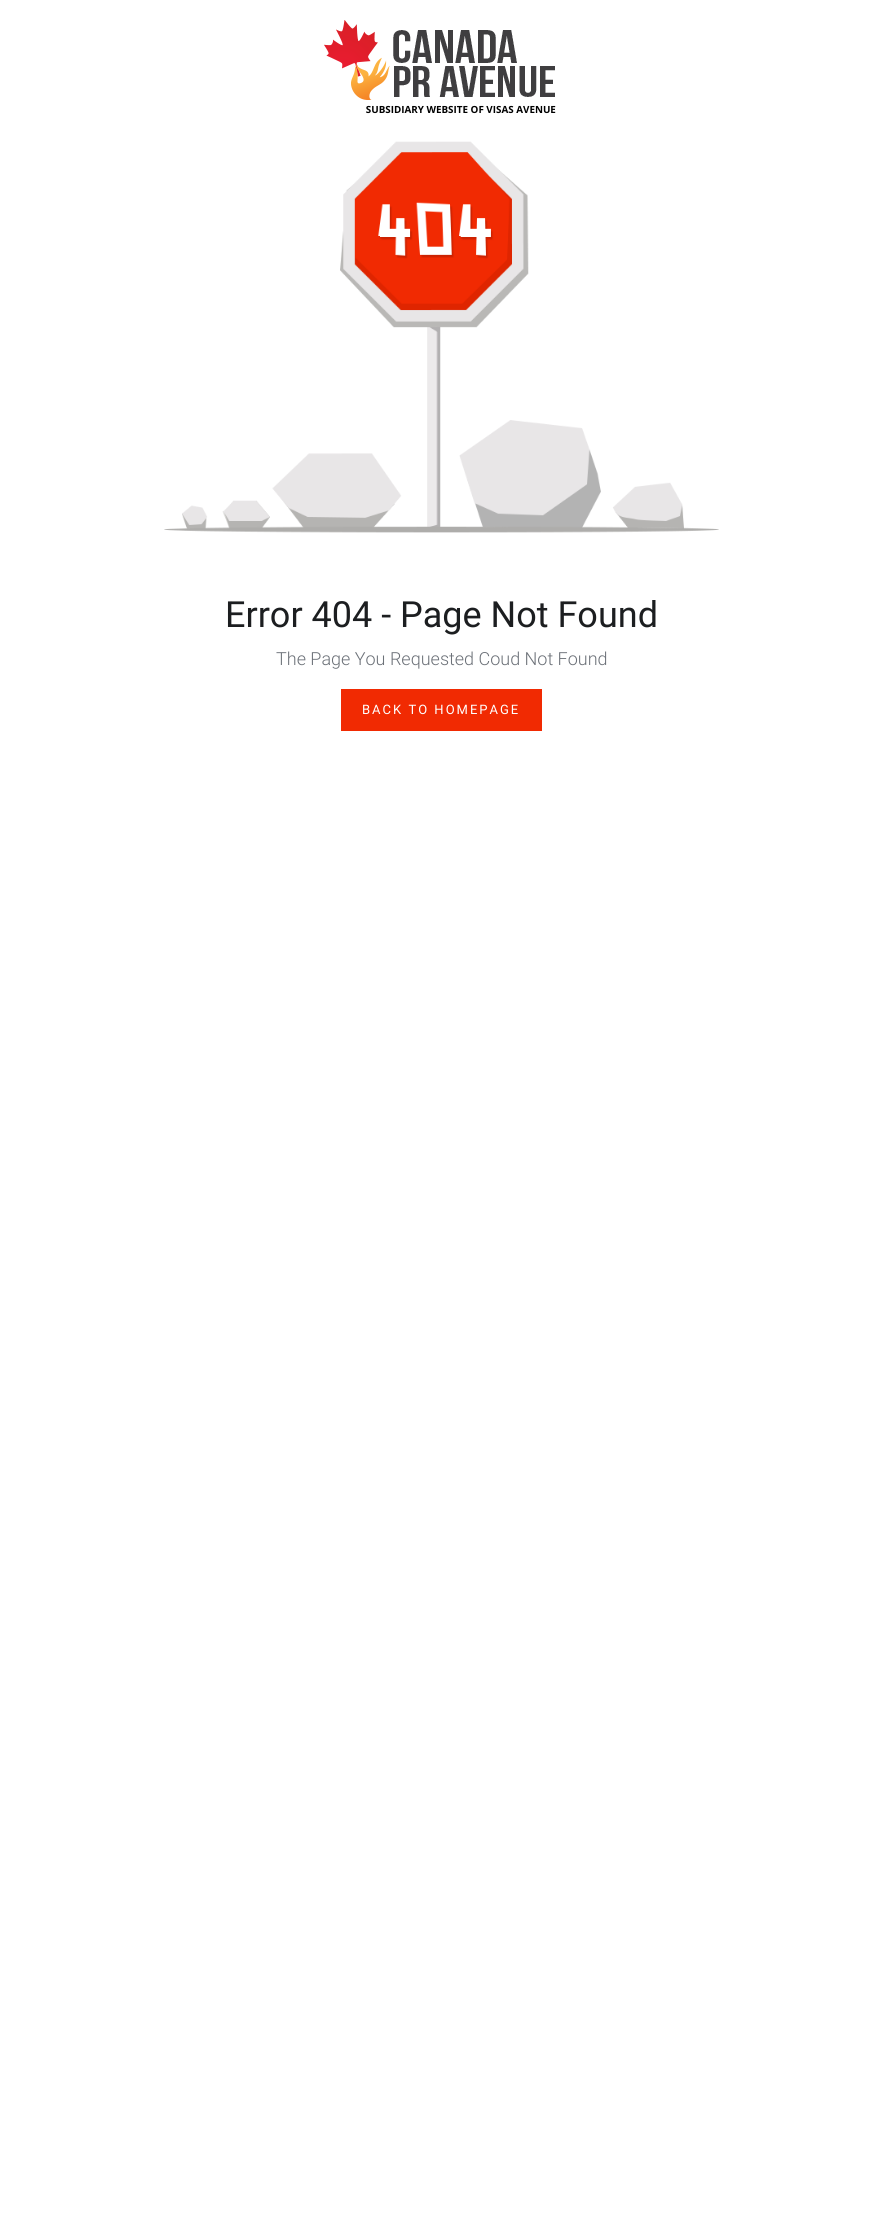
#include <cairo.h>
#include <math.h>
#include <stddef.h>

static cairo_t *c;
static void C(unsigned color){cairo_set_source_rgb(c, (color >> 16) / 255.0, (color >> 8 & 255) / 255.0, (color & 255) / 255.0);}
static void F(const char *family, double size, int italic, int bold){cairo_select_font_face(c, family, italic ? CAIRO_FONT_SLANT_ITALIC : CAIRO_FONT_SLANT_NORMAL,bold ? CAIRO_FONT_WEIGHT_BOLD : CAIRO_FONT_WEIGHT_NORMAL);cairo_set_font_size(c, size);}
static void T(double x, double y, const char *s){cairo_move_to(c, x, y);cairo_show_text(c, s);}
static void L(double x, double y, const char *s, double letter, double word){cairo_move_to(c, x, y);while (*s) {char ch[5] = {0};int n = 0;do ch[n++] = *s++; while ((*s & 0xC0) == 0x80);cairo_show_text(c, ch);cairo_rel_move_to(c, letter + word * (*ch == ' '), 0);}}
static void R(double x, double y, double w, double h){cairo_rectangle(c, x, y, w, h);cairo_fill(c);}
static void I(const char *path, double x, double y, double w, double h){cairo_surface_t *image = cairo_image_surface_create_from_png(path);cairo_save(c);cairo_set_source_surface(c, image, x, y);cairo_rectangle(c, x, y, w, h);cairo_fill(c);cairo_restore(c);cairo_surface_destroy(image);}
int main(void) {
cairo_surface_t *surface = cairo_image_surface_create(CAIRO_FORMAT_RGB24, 883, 2219);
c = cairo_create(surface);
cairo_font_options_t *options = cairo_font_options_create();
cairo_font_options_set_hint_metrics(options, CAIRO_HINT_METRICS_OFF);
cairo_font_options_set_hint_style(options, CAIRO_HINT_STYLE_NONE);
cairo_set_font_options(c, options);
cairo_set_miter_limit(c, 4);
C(0xffffff);
cairo_paint(c);
I("1.png",324,20,232,94);
I("2.png",164,141,555,392);
F("Roboto",36,0,0);
C(0x1c1e20);
T(225,627,"Error 404 - Page Not Found");
F("Roboto Light",18,0,0);
C(0x6c7178);
T(276,665,"The Page You Requested Coud Not Found");
C(0xf12a02);
R(341,689,201,42);
F("Roboto",13,0,0);
C(0xffffff);
L(362,714,"BACK TO HOMEPAGE",2,0);
cairo_surface_write_to_png(surface, "o.png");
cairo_font_options_destroy(options);
cairo_destroy(c);
cairo_surface_destroy(surface);
return 0;
}
